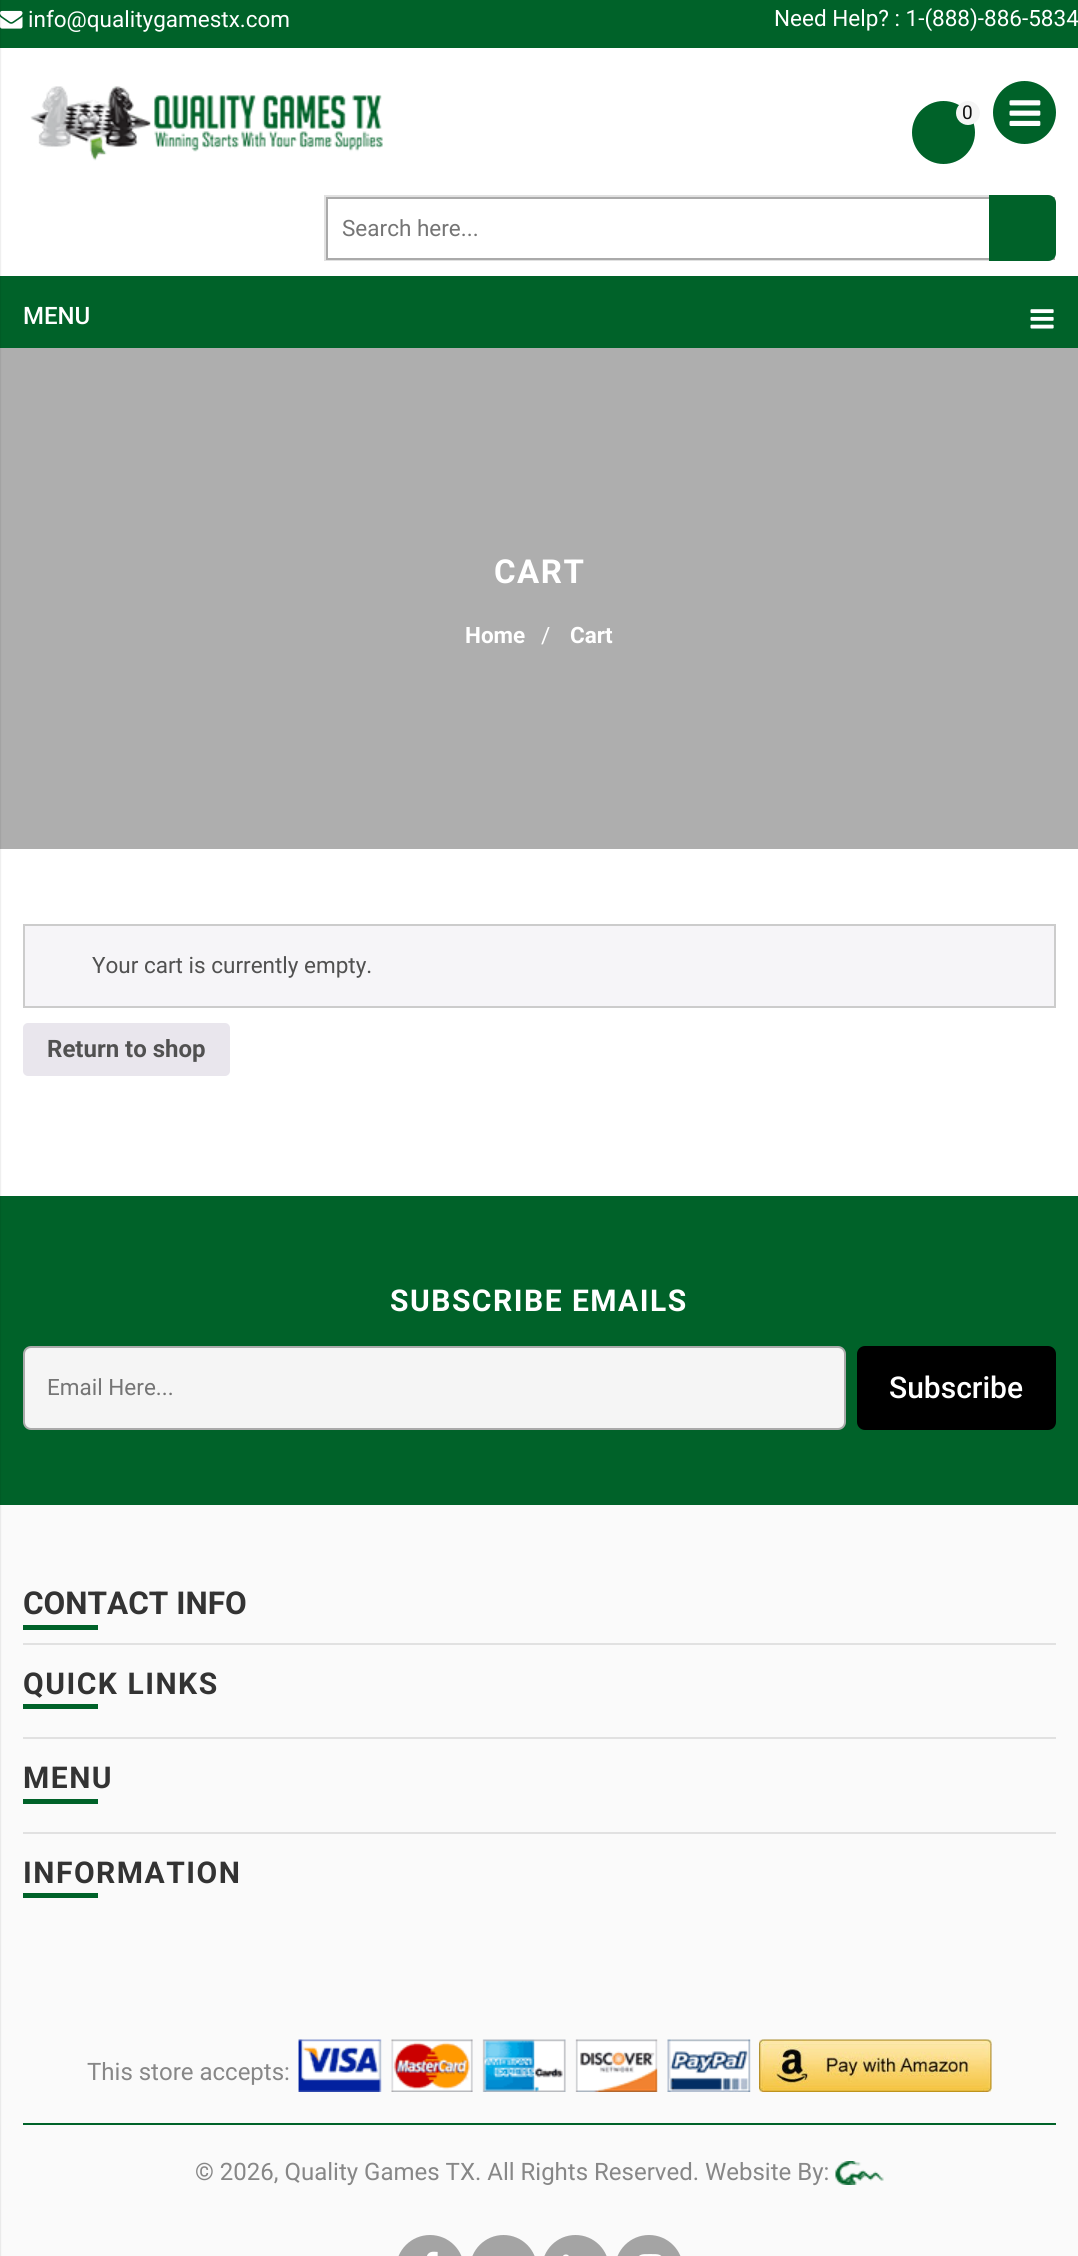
#include <cairo.h>
#include <math.h>
#include <stddef.h>

static cairo_t *c;
static void C(unsigned color){cairo_set_source_rgb(c, (color >> 16) / 255.0, (color >> 8 & 255) / 255.0, (color & 255) / 255.0);}
static void F(const char *family, double size, int italic, int bold){cairo_select_font_face(c, family, italic ? CAIRO_FONT_SLANT_ITALIC : CAIRO_FONT_SLANT_NORMAL,bold ? CAIRO_FONT_WEIGHT_BOLD : CAIRO_FONT_WEIGHT_NORMAL);cairo_set_font_size(c, size);}
static void T(double x, double y, const char *s){cairo_move_to(c, x, y);cairo_show_text(c, s);}
static void L(double x, double y, const char *s, double letter, double word){cairo_move_to(c, x, y);while (*s) {char ch[5] = {0};int n = 0;do ch[n++] = *s++; while ((*s & 0xC0) == 0x80);cairo_show_text(c, ch);cairo_rel_move_to(c, letter + word * (*ch == ' '), 0);}}
static void R(double x, double y, double w, double h){cairo_rectangle(c, x, y, w, h);cairo_fill(c);}
static void Q(double x, double y, double w, double h, double r){cairo_new_sub_path(c);cairo_arc(c, x + w - r, y + h - r, r, 0, M_PI / 2);cairo_arc(c, x + r, y + h - r, r, M_PI / 2, M_PI);cairo_arc(c, x + r, y + r, r, M_PI, 1.5 * M_PI);cairo_arc(c, x + w - r, y + r, r, 1.5 * M_PI, 2 * M_PI);cairo_close_path(c);}
static void S(double x, double y, double w, double h, double r, double blur, double alpha){cairo_push_group_with_content(c, CAIRO_CONTENT_ALPHA);cairo_set_operator(c, CAIRO_OPERATOR_SOURCE);for (int i = 15; i >= -15 && fmin(w, h) + blur * i / 3 > 0; i -= 2) {double e = blur * i / 6;cairo_set_source_rgba(c, 0, 0, 0, alpha * erfc((i - 1) / 8.5) / 2);Q(x - e, y - e, w + 2 * e, h + 2 * e, fmax(0, fmin(r + e + blur * .6, fmin(w, h) / 2 + e)));cairo_fill(c);}cairo_pattern_t *soft = cairo_pop_group(c);cairo_mask(c, soft);cairo_pattern_destroy(soft);}
static void I(const char *path, double x, double y, double w, double h){cairo_surface_t *image = cairo_image_surface_create_from_png(path);cairo_save(c);cairo_set_source_surface(c, image, x, y);cairo_rectangle(c, x, y, w, h);cairo_fill(c);cairo_restore(c);cairo_surface_destroy(image);}
int main(void) {
cairo_surface_t *surface = cairo_image_surface_create(CAIRO_FORMAT_RGB24, 1078, 2256);
c = cairo_create(surface);
cairo_font_options_t *options = cairo_font_options_create();
cairo_font_options_set_hint_metrics(options, CAIRO_HINT_METRICS_OFF);
cairo_font_options_set_hint_style(options, CAIRO_HINT_STYLE_NONE);
cairo_set_font_options(c, options);
cairo_set_miter_limit(c, 4);
C(0xffffff);
cairo_paint(c);
C(0x006229);
R(0,0,1078,48);
I("1.png",0,10,23,19);
F("Roboto",22.5,0,0);
C(0xffffff);
T(28,27,"info@qualitygamestx.com");
T(774,26,"Need Help? : 1-(888)-886-5834");
C(0x006229);
R(0,276,1078,72);
C(0xaeaeae);
R(0,348,1078,501);
C(0x006229);
R(0,1196,1078,309);
C(0xfafafa);
R(0,1505,1078,751);
C(0x000000);
S(-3,0,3,2256,0,1,.2);
C(0x006229);
cairo_arc(c,943.5,132.5,31.5,0,2 * M_PI);
cairo_fill(c);
C(0xf5f5f5);
cairo_arc(c,968,113,12,0,2 * M_PI);
cairo_fill(c);
F("Roboto",19,0,0);
C(0x111111);
T(962,119,"0");
F("Roboto Medium",24,0,0);
C(0xffffff);
T(23,324,"MENU");
I("2.png",1030,309,24,20);
I("3.png",30,86,353,75);
C(0x006229);
cairo_arc(c,1024.5,112.5,31.5,0,2 * M_PI);
cairo_fill(c);
I("4.png",1009,100,32,26);
cairo_new_path(c);
cairo_move_to(c,325,196);
cairo_line_to(c,1048,196);
cairo_curve_to(c,1052,196,1055,199,1055,203);
cairo_line_to(c,1055,253);
cairo_curve_to(c,1055,257,1052,260,1048,260);
cairo_line_to(c,325,260);
cairo_close_path(c);
C(0xe1e1e1);
cairo_stroke(c);
cairo_rectangle(c,327,198,727,61);
C(0xaaaaaa);
cairo_stroke(c);
F("Roboto",22.5,0,0);
C(0x757575);
T(342,236,"Search here...");
C(0x006229);
cairo_new_path(c);
cairo_move_to(c,989,195);
cairo_line_to(c,1048,195);
cairo_curve_to(c,1052.5,195,1056,198.5,1056,203);
cairo_line_to(c,1056,253);
cairo_curve_to(c,1056,257.5,1052.5,261,1048,261);
cairo_line_to(c,989,261);
cairo_close_path(c);
cairo_fill(c);
F("Roboto",33,0,1);
C(0xffffff);
L(494,583,"CART",1.5,0);
F("Roboto",22.5,0,1);
T(465,643,"Home");
F("Roboto",22.5,0,0);
T(541,643,"/");
F("Roboto",22.5,0,1);
T(570,643,"Cart");
C(0xf6f5f8);
cairo_rectangle(c,24,925,1031,82);
cairo_fill_preserve(c);
C(0xcccccc);
cairo_stroke(c);
F("Roboto",22.5,0,0);
C(0x515151);
T(92,973,"Your cart is currently empty.");
C(0xe9e6ed);
Q(23,1023,207,53,5);
cairo_fill(c);
F("Roboto",24,0,1);
C(0x515151);
T(47,1057,"Return to shop");
F("Roboto",30,0,1);
C(0xffffff);
L(390,1311,"SUBSCRIBE EMAILS",1.5,0);
C(0xf5f5f5);
Q(24,1347,821,82,7);
cairo_fill_preserve(c);
C(0xaaaaaa);
cairo_stroke(c);
F("Roboto",22.5,0,0);
C(0x757575);
T(47,1395,"Email Here...");
C(0x000000);
Q(857,1346,199,84,8);
cairo_fill(c);
F("Roboto Medium",30,0,0);
C(0xffffff);
T(889,1398,"Subscribe");
F("Roboto",31.5,0,1);
C(0x333333);
T(23,1614,"CONTACT INFO");
C(0x006229);
R(23,1625,75,5);
C(0xe1e1e1);
R(23,1643,1033,2);
R(23,1737,1033,2);
F("Roboto",30,0,1);
C(0x333333);
L(23,1694,"QUICK LINKS",1.5,0);
C(0x006229);
R(23,1704,75,5);
C(0xe1e1e1);
R(23,1832,1033,2);
C(0x333333);
L(23,1788,"MENU",1.5,0);
C(0x006229);
R(23,1799,75,5);
C(0x333333);
L(23,1883,"INFORMATION",1.5,0);
C(0x006229);
R(23,1893,75,5);
F("Roboto",24,0,0);
C(0x878787);
T(87,2080,"This store accepts:");
I("5.png",298,2039,453,53);
I("6.png",759,2039,233,53);
C(0x006229);
R(23,2123,1033,2);
C(0x878787);
T(195,2180,"© 2026, Quality Games TX. All Rights Reserved. Website By:");
I("7.png",835,2161,49,24);
C(0xa4a4a4);
Q(396,2235,68,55,34);
cairo_fill(c);
I("8.png",427,2251,11,5);
Q(470,2235,67,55,33.5);
cairo_fill(c);
Q(542,2235,67,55,33.5);
cairo_fill(c);
I("9.png",563,2254,6,2);
Q(615,2235,68,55,34);
cairo_fill(c);
I("10.png",639,2254,23,2);
cairo_surface_write_to_png(surface, "o.png");
cairo_font_options_destroy(options);
cairo_destroy(c);
cairo_surface_destroy(surface);
return 0;
}
